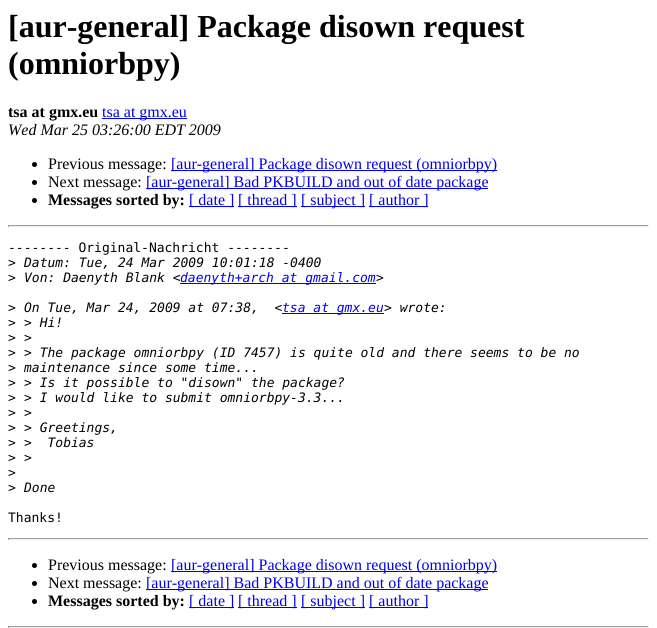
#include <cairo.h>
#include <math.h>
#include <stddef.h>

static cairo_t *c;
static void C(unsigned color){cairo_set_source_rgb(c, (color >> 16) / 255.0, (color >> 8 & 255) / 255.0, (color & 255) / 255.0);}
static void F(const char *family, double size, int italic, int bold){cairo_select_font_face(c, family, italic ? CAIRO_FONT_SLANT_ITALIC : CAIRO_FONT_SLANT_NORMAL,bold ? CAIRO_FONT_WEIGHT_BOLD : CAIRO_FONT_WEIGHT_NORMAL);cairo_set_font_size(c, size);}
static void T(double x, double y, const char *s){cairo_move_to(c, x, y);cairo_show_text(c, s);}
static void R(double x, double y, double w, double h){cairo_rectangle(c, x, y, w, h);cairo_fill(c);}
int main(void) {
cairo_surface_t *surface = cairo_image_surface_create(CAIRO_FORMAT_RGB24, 657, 628);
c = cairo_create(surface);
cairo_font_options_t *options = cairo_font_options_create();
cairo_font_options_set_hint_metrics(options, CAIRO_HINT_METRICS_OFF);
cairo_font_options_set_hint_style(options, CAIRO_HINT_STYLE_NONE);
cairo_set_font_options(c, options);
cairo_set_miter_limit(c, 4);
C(0xffffff);
cairo_paint(c);
F("Liberation Serif",32,0,1);
C(0x000000);
T(8,37,"[aur-general] Package disown request");
T(8,74,"(omniorbpy)");
F("Liberation Serif",16,0,1);
T(8,117,"tsa at gmx.eu");
C(0x0000ee);
R(102,118,85,1);
F("Liberation Serif",16,0,0);
T(102,117,"tsa at gmx.eu");
F("Liberation Serif",16,1,0);
C(0x000000);
T(8,135,"Wed Mar 25 03:26:00 EDT 2009");
cairo_new_path(c);
cairo_arc(c,34.5,164.5,2.5,0,2 * M_PI);
cairo_fill(c);
F("Liberation Serif",16,0,0);
T(48,169,"Previous message:");
C(0x0000ee);
R(171,170,326,1);
T(171,169,"[aur-general] Package disown request (omniorbpy)");
C(0x000000);
cairo_new_path(c);
cairo_arc(c,34.5,182.5,2.5,0,2 * M_PI);
cairo_fill(c);
T(48,187,"Next message:");
C(0x0000ee);
R(146,188,342,1);
T(146,187,"[aur-general] Bad PKBUILD and out of date package");
C(0x000000);
cairo_new_path(c);
cairo_arc(c,34.5,200.5,2.5,0,2 * M_PI);
cairo_fill(c);
F("Liberation Serif",16,0,1);
T(48,205,"Messages sorted by:");
C(0x0000ee);
R(189,206,45,1);
F("Liberation Serif",16,0,0);
T(189,205,"[ date ]");
R(238,206,59,1);
T(238,205,"[ thread ]");
R(301,206,64,1);
T(301,205,"[ subject ]");
R(369,206,59,1);
T(369,205,"[ author ]");
C(0x9f9f9f);
R(8,225,641,1);
C(0xeeeeee);
R(648,225,1,2);
R(8,226,641,1);
C(0x9f9f9f);
R(8,225,1,2);
F("DejaVu Sans Mono",13,0,0);
C(0x000000);
T(8,252,"-------- Original-Nachricht --------");
T(8,267,">");
F("DejaVu Sans Mono",13,1,0);
T(24,267,"Datum: Tue, 24 Mar 2009 10:01:18 -0400");
F("DejaVu Sans Mono",13,0,0);
T(8,282,">");
F("DejaVu Sans Mono",13,1,0);
T(24,282,"Von: Daenyth Blank <");
C(0x0000ee);
R(180,283,196,1);
T(180,282,"daenyth+arch at gmail.com");
C(0x000000);
T(376,282,">");
F("DejaVu Sans Mono",13,0,0);
T(8,312,">");
F("DejaVu Sans Mono",13,1,0);
T(24,312,"On Tue, Mar 24, 2009 at 07:38,  <");
C(0x0000ee);
R(282,313,102,1);
T(282,312,"tsa at gmx.eu");
C(0x000000);
T(384,312,"> wrote:");
F("DejaVu Sans Mono",13,0,0);
T(8,327,">");
F("DejaVu Sans Mono",13,1,0);
T(24,327,"> Hi!");
F("DejaVu Sans Mono",13,0,0);
T(8,342,">");
F("DejaVu Sans Mono",13,1,0);
T(24,342,">");
F("DejaVu Sans Mono",13,0,0);
T(8,357,">");
F("DejaVu Sans Mono",13,1,0);
T(24,357,"> The package omniorbpy (ID 7457) is quite old and there seems to be no");
F("DejaVu Sans Mono",13,0,0);
T(8,372,">");
F("DejaVu Sans Mono",13,1,0);
T(24,372,"maintenance since some time...");
F("DejaVu Sans Mono",13,0,0);
T(8,387,">");
F("DejaVu Sans Mono",13,1,0);
T(24,387,"> Is it possible to \"disown\" the package?");
F("DejaVu Sans Mono",13,0,0);
T(8,402,">");
F("DejaVu Sans Mono",13,1,0);
T(24,402,"> I would like to submit omniorbpy-3.3...");
F("DejaVu Sans Mono",13,0,0);
T(8,417,">");
F("DejaVu Sans Mono",13,1,0);
T(24,417,">");
F("DejaVu Sans Mono",13,0,0);
T(8,432,">");
F("DejaVu Sans Mono",13,1,0);
T(24,432,"> Greetings,");
F("DejaVu Sans Mono",13,0,0);
T(8,447,">");
F("DejaVu Sans Mono",13,1,0);
T(24,447,">  Tobias");
F("DejaVu Sans Mono",13,0,0);
T(8,462,">");
F("DejaVu Sans Mono",13,1,0);
T(24,462,">");
F("DejaVu Sans Mono",13,0,0);
T(8,477,">");
T(8,492,">");
F("DejaVu Sans Mono",13,1,0);
T(24,492,"Done");
F("DejaVu Sans Mono",13,0,0);
T(8,522,"Thanks!");
C(0x9f9f9f);
R(8,538,641,1);
C(0xeeeeee);
R(648,538,1,2);
R(8,539,641,1);
C(0x9f9f9f);
R(8,538,1,2);
C(0x000000);
cairo_new_path(c);
cairo_arc(c,34.5,565.5,2.5,0,2 * M_PI);
cairo_fill(c);
F("Liberation Serif",16,0,0);
T(48,570,"Previous message:");
C(0x0000ee);
R(171,571,326,1);
T(171,570,"[aur-general] Package disown request (omniorbpy)");
C(0x000000);
cairo_new_path(c);
cairo_arc(c,34.5,583.5,2.5,0,2 * M_PI);
cairo_fill(c);
T(48,588,"Next message:");
C(0x0000ee);
R(146,589,342,1);
T(146,588,"[aur-general] Bad PKBUILD and out of date package");
C(0x000000);
cairo_new_path(c);
cairo_arc(c,34.5,601.5,2.5,0,2 * M_PI);
cairo_fill(c);
F("Liberation Serif",16,0,1);
T(48,606,"Messages sorted by:");
C(0x0000ee);
R(189,607,45,1);
F("Liberation Serif",16,0,0);
T(189,606,"[ date ]");
R(238,607,59,1);
T(238,606,"[ thread ]");
R(301,607,64,1);
T(301,606,"[ subject ]");
R(369,607,59,1);
T(369,606,"[ author ]");
C(0x9f9f9f);
R(8,626,641,1);
C(0xeeeeee);
R(648,626,1,2);
R(8,627,641,1);
C(0x9f9f9f);
R(8,626,1,2);
cairo_surface_write_to_png(surface, "o.png");
cairo_font_options_destroy(options);
cairo_destroy(c);
cairo_surface_destroy(surface);
return 0;
}
